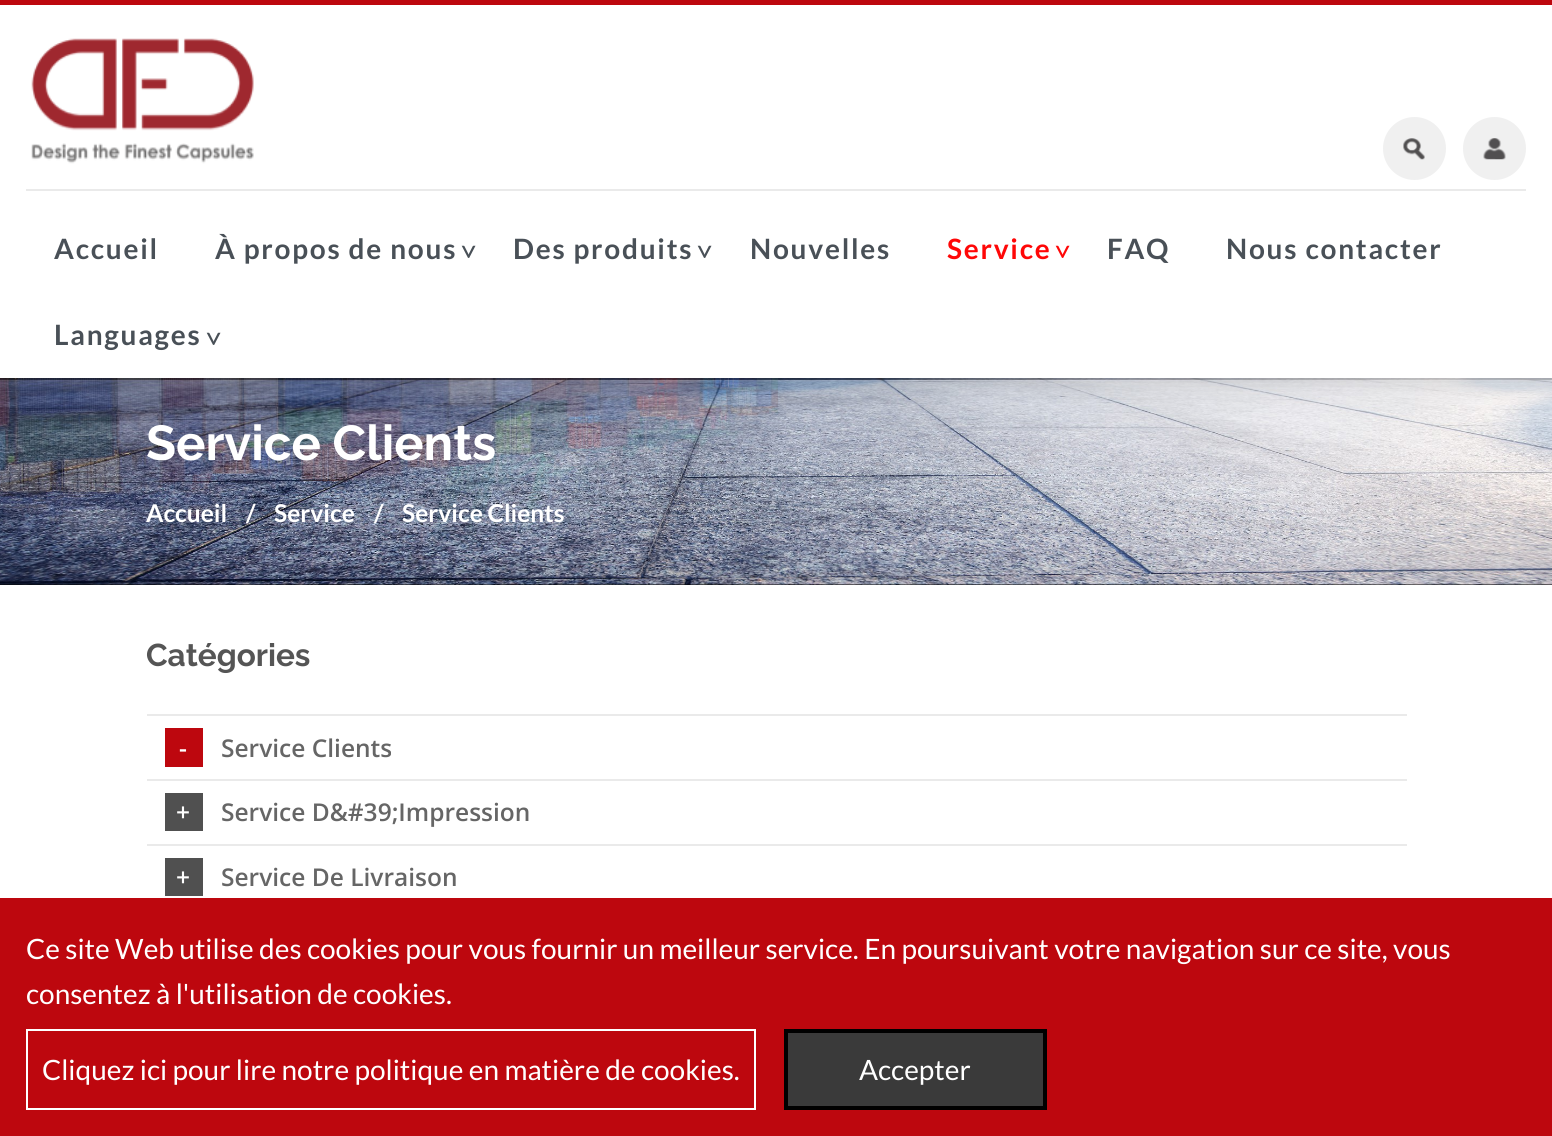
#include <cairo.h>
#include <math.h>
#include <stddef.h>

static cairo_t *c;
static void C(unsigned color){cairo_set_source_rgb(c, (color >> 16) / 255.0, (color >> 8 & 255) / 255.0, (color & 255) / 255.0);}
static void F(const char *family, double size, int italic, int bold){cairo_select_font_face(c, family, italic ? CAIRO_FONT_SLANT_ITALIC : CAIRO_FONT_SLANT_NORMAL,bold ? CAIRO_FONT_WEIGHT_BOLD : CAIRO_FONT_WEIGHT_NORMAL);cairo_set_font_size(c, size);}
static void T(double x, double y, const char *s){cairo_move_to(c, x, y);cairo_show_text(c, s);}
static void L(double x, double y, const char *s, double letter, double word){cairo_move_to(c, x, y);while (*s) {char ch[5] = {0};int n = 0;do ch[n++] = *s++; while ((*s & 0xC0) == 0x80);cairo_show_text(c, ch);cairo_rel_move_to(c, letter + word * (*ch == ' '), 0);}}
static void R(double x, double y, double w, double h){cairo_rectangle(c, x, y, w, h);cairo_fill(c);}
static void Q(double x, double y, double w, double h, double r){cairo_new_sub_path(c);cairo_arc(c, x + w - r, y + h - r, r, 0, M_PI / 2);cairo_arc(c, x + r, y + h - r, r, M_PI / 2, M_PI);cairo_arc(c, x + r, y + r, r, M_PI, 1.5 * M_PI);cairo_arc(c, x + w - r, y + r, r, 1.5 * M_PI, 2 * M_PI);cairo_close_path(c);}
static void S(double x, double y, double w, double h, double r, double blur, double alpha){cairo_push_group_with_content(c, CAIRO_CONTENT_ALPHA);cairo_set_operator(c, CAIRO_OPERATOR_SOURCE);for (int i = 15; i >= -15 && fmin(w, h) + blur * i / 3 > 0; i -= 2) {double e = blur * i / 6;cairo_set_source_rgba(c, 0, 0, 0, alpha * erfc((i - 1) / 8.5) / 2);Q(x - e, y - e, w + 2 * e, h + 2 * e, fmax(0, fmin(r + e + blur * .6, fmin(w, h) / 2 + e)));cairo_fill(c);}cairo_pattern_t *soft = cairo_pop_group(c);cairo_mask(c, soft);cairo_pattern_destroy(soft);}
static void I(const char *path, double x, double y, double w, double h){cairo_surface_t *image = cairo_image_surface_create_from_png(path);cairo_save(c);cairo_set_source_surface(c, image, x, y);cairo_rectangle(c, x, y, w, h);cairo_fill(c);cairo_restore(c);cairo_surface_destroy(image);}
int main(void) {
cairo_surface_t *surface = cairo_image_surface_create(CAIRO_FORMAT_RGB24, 1552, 1136);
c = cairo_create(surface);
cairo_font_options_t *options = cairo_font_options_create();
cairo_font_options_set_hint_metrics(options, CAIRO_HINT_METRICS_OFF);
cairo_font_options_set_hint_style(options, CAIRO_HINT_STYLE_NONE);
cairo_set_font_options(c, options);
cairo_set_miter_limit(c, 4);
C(0xffffff);
cairo_paint(c);
C(0x000000);
R(0,584,1552,1);
I("4.png",0,378,1552,207);
C(0x7f7f7f);
S(-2,4,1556,381,0,13,.28);
C(0xffffff);
R(0,5,1552,373);
C(0xbd070e);
R(0,0,1552,5);
C(0xf0f0f0);
cairo_arc(c,1414.5,148.5,31.5,0,2 * M_PI);
cairo_fill(c);
I("1.png",1403,138,22,22);
cairo_arc(c,1494.5,148.5,31.5,0,2 * M_PI);
cairo_fill(c);
I("2.png",1483,138,23,22);
I("3.png",31,38,223,126);
C(0xeaeaea);
R(26,189,1500,2);
F("Lato",28,0,1);
C(0x495057);
L(54,259,"Accueil",1.75,0);
L(215,259,"À propos de nous",1.75,0);
F("Lato",31.5,0,0);
cairo_save(c);
cairo_translate(c,458,242);
cairo_rotate(c,90 * M_PI / 180);
L(0,0,">",-7,0);
cairo_restore(c);
F("Lato",28,0,1);
L(513,259,"Des produits",1.75,0);
F("Lato",31.5,0,0);
cairo_save(c);
cairo_translate(c,694,242);
cairo_rotate(c,90 * M_PI / 180);
L(0,0,">",-7,0);
cairo_restore(c);
F("Lato",28,0,1);
L(750,259,"Nouvelles",1.75,0);
C(0xff0707);
L(947,259,"Service",1.75,0);
F("Lato",31.5,0,0);
cairo_save(c);
cairo_translate(c,1052,242);
cairo_rotate(c,90 * M_PI / 180);
L(0,0,">",-7,0);
cairo_restore(c);
F("Lato",28,0,1);
C(0x495057);
L(1107,259,"FAQ",1.75,0);
L(1226,259,"Nous contacter",1.75,0);
L(54,345,"Languages",1.75,0);
F("Lato",31.5,0,0);
cairo_save(c);
cairo_translate(c,203,329);
cairo_rotate(c,90 * M_PI / 180);
L(0,0,">",-7,0);
cairo_restore(c);
F("Raleway",49,0,1);
C(0xffffff);
T(146,460,"Service Clients");
F("Lato",24.5,0,1);
T(146,522,"Accueil");
T(246,522,"/");
T(274,522,"Service");
T(374,522,"/");
T(402,522,"Service Clients");
F("Raleway",31.5,0,1);
C(0x555555);
T(146,666,"Catégories");
C(0xeaeaea);
R(147,714,1260,2);
C(0xbd070e);
R(165,728,38,39);
F("Open Sans SemiBold",24.5,0,0);
C(0xffffff);
T(179,757,"-");
C(0x666666);
T(221,757,"Service Clients");
C(0xeaeaea);
R(147,779,1260,2);
C(0x505050);
R(165,793,38,38);
C(0xffffff);
T(176,821,"+");
C(0x666666);
T(221,821,"Service D&#39;Impression");
C(0xeaeaea);
R(147,844,1260,2);
C(0x505050);
R(165,858,38,38);
C(0xffffff);
T(176,886,"+");
C(0x666666);
T(221,886,"Service De Livraison");
C(0xbd070e);
R(0,898,1552,238);
F("Lato",28,0,0);
C(0xffffff);
T(26,959,"Ce site Web utilise des cookies pour vous fournir un meilleur service. En poursuivant votre navigation sur ce site, vous");
T(26,1004,"consentez à l'utilisation de cookies.");
cairo_rectangle(c,27,1030,728,79);
cairo_stroke(c);
T(42,1080,"Cliquez ici pour lire notre politique en matière de cookies.");
C(0x3a3a3a);
cairo_rectangle(c,786,1031,259,77);
cairo_fill_preserve(c);
C(0x000000);
cairo_set_line_width(c,4);
cairo_stroke(c);
C(0xffffff);
T(859,1080,"Accepter");
cairo_surface_write_to_png(surface, "o.png");
cairo_font_options_destroy(options);
cairo_destroy(c);
cairo_surface_destroy(surface);
return 0;
}
